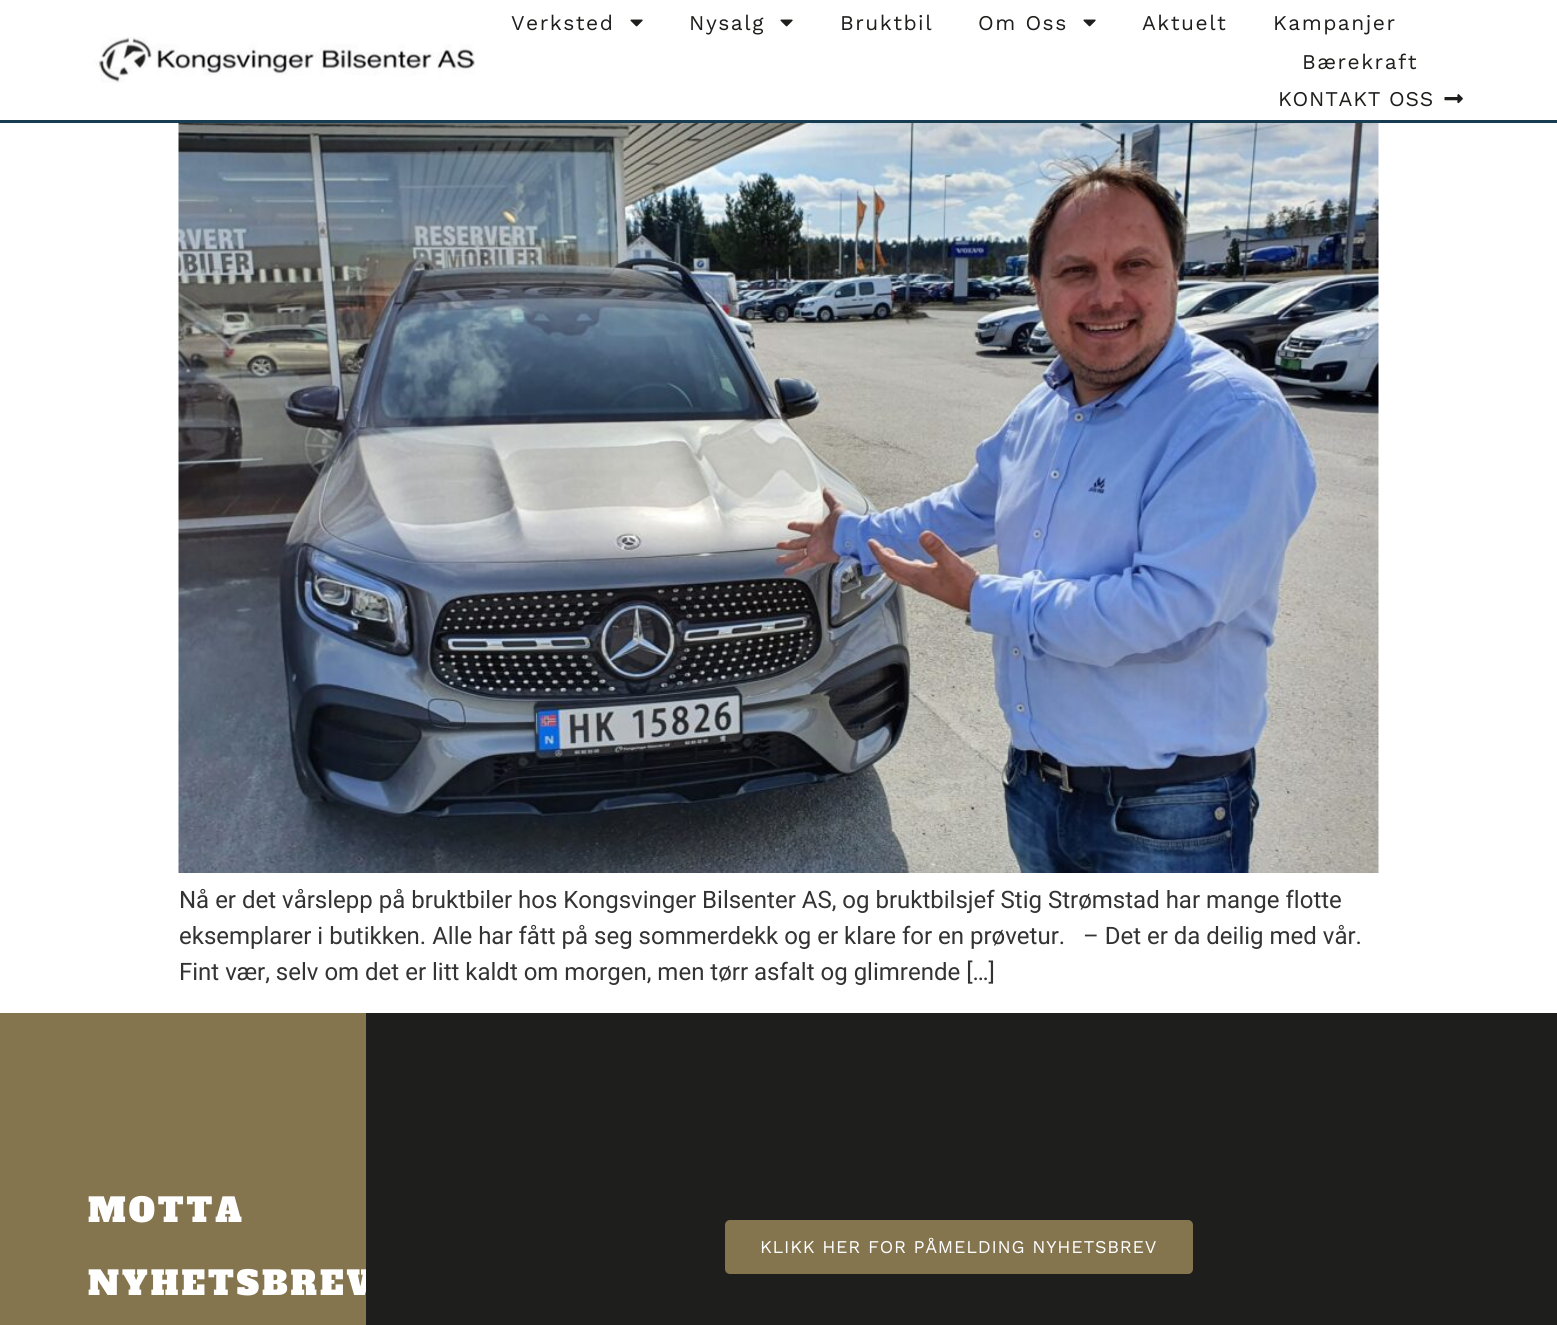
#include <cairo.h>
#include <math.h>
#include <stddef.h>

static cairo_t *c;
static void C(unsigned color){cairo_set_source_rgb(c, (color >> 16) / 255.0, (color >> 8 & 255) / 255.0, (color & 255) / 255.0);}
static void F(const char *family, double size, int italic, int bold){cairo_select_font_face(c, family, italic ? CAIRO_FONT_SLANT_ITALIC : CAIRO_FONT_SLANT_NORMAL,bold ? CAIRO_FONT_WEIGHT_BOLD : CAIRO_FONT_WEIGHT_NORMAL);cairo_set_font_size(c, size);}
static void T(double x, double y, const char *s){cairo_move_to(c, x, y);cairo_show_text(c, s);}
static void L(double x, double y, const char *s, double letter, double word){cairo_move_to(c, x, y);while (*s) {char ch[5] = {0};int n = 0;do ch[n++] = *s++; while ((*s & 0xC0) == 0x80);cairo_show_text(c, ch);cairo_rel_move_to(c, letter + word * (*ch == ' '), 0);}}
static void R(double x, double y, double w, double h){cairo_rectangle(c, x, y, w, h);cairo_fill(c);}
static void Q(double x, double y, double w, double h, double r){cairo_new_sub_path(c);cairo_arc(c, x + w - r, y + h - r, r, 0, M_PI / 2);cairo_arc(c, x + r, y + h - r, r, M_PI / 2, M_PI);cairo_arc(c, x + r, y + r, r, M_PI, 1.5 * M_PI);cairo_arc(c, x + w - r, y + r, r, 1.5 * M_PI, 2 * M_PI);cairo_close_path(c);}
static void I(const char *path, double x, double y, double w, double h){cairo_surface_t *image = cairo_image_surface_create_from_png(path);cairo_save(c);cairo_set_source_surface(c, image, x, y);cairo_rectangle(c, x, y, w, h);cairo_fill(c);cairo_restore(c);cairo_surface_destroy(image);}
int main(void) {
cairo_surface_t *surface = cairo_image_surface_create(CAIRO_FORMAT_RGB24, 1557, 1325);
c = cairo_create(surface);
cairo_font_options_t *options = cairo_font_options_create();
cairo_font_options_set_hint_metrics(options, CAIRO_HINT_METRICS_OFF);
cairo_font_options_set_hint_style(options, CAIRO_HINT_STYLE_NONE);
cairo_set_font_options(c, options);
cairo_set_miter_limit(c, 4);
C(0xffffff);
cairo_paint(c);
C(0x183c51);
R(0,120,1557,3);
I("1.png",93,37,382,46);
F("Work Sans",21,0,0);
C(0x1e1e1c);
L(511,30,"Verksted",1.5,0);
I("2.png",630,19,13,8);
L(689,30,"Nysalg",1.5,0);
I("2.png",780,19,13,8);
L(840,30,"Bruktbil",1.5,0);
L(978,30,"Om Oss",1.5,0);
I("2.png",1083,19,13,8);
L(1142,30,"Aktuelt",1.5,0);
L(1273,30,"Kampanjer",1.5,0);
L(1302,69,"Bærekraft",1.5,0);
L(1278,106,"KONTAKT OSS",.75,0);
I("3.png",1444,94,19,10);
I("4.png",178,123,1201,750);
F("Roboto",24,0,0);
C(0x333333);
T(179,908,"Nå er det vårslepp på bruktbiler hos Kongsvinger Bilsenter AS, og bruktbilsjef Stig Strømstad har mange flotte");
T(179,944,"eksemplarer i butikken. Alle har fått på seg sommerdekk og er klare for en prøvetur.   – Det er da deilig med vår.");
T(179,980,"Fint vær, selv om det er litt kaldt om morgen, men tørr asfalt og glimrende […]");
C(0x84754f);
R(0,1013,366,312);
F("Alfa Slab One",33,0,0);
C(0xffffff);
L(88,1222,"MOTTA",3,0);
L(88,1295,"NYHETSBREV",3,0);
C(0x1e1e1c);
R(366,1013,1191,312);
C(0x84754f);
Q(725,1220,468,54,5);
cairo_fill(c);
F("Work Sans",18,0,0);
C(0xffffff);
L(760,1253,"KLIKK HER FOR PÅMELDING NYHETSBREV",.75,0);
cairo_surface_write_to_png(surface, "o.png");
cairo_font_options_destroy(options);
cairo_destroy(c);
cairo_surface_destroy(surface);
return 0;
}
